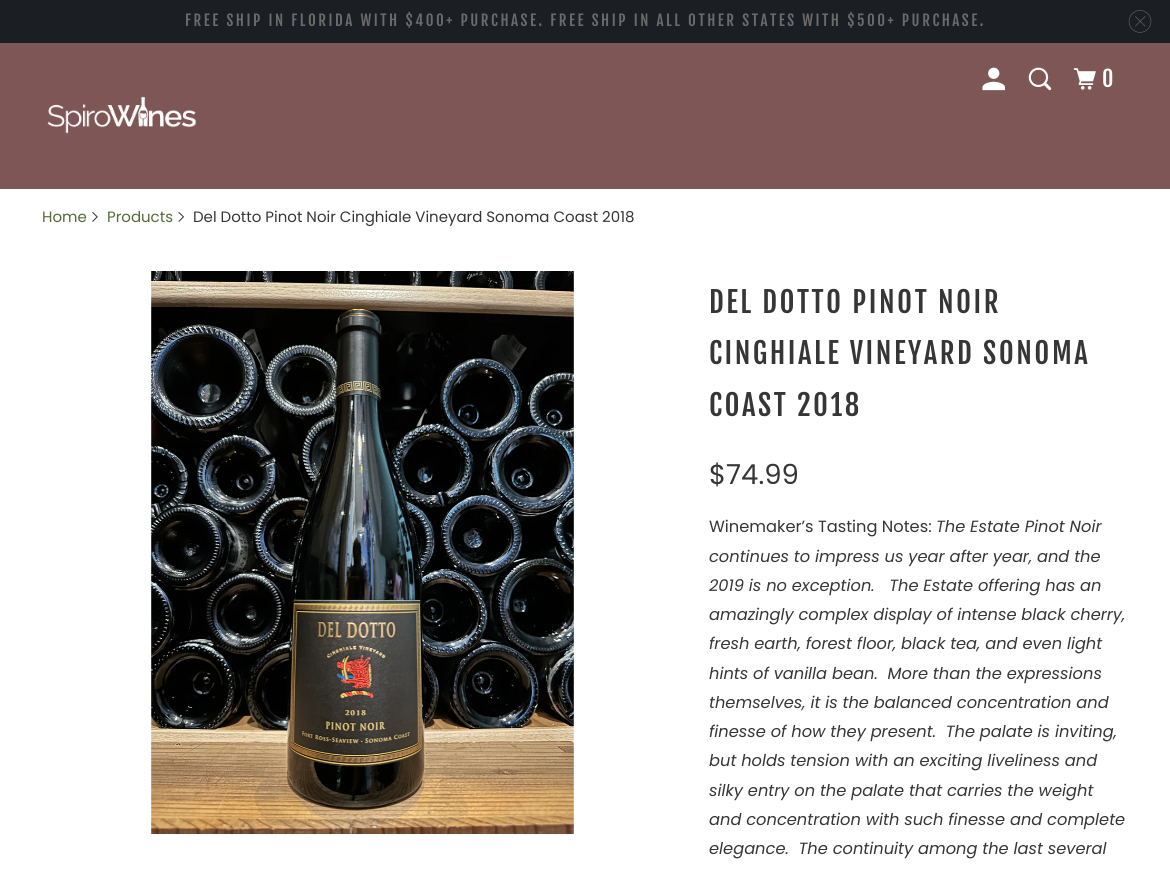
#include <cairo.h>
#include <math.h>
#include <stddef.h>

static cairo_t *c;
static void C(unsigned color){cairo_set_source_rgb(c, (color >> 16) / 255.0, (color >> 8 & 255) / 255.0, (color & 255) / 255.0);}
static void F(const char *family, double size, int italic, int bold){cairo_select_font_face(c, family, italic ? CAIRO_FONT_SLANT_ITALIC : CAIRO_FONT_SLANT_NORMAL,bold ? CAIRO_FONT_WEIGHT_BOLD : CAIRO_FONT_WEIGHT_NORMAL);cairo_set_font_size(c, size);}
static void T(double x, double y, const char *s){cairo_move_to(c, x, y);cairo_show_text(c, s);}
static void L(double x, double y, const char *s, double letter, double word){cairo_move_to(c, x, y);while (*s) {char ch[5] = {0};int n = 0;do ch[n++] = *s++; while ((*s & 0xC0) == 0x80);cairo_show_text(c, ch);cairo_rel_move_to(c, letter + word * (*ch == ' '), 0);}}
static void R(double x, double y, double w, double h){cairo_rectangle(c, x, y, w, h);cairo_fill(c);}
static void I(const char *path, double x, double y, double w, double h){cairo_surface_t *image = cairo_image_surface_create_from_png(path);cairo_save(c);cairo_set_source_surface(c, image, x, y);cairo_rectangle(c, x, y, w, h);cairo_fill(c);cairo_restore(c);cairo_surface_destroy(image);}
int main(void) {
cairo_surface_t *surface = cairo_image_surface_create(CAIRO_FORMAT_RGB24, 1170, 872);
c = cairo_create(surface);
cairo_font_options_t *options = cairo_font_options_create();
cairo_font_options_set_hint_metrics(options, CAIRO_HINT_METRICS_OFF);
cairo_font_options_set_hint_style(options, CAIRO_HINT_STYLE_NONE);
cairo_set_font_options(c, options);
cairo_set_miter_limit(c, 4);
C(0xffffff);
cairo_paint(c);
C(0x1b1f23);
R(0,0,1170,43);
F("Fjalla One",15,0,0);
C(0x6b6b6b);
L(185,26,"FREE SHIP IN FLORIDA WITH $400+ PURCHASE. FREE SHIP IN ALL OTHER STATES WITH $500+ PURCHASE.",2.5,0);
I("1.png",1128,10,24,23);
C(0x7f5656);
R(0,43,1170,146);
I("2.png",982,67,23,24);
I("3.png",1028,67,24,24);
I("4.png",1073,68,23,22);
F("Fjalla One",22,0,0);
C(0xffffff);
T(1102,87,"0");
I("5.png",47,96,150,38);
F("Poppins",15,0,0);
C(0x546a3a);
T(42,222,"Home");
I("6.png",92,212,6,10);
T(107,222,"Products");
I("7.png",178,212,7,10);
C(0x363636);
T(193,222,"Del Dotto Pinot Noir Cinghiale Vineyard Sonoma Coast 2018");
I("8.png",151,271,423,563);
F("Fjalla One",28.75,0,0);
L(709,313,"DEL DOTTO PINOT NOIR",2.5,0);
L(709,364,"CINGHIALE VINEYARD SONOMA",2.5,0);
L(709,416,"COAST 2018",2.5,0);
F("Poppins",27.5,0,0);
T(709,484,"$74.99");
F("Poppins",16.25,0,0);
T(709,532,"Winemaker’s Tasting Notes:");
F("Poppins",16.25,1,0);
T(936,532,"The Estate Pinot Noir");
T(709,562,"continues to impress us year after year, and the");
T(709,591,"2019 is no exception.   The Estate offering has an");
T(709,620,"amazingly complex display of intense black cherry,");
T(709,649,"fresh earth, forest floor, black tea, and even light");
T(709,679,"hints of vanilla bean.  More than the expressions");
T(709,708,"themselves, it is the balanced concentration and");
T(709,737,"finesse of how they present.  The palate is inviting,");
T(709,766,"but holds tension with an exciting liveliness and");
T(709,796,"silky entry on the palate that carries the weight");
T(709,825,"and concentration with such finesse and complete");
T(709,854,"elegance.  The continuity among the last several");
cairo_surface_write_to_png(surface, "o.png");
cairo_font_options_destroy(options);
cairo_destroy(c);
cairo_surface_destroy(surface);
return 0;
}
